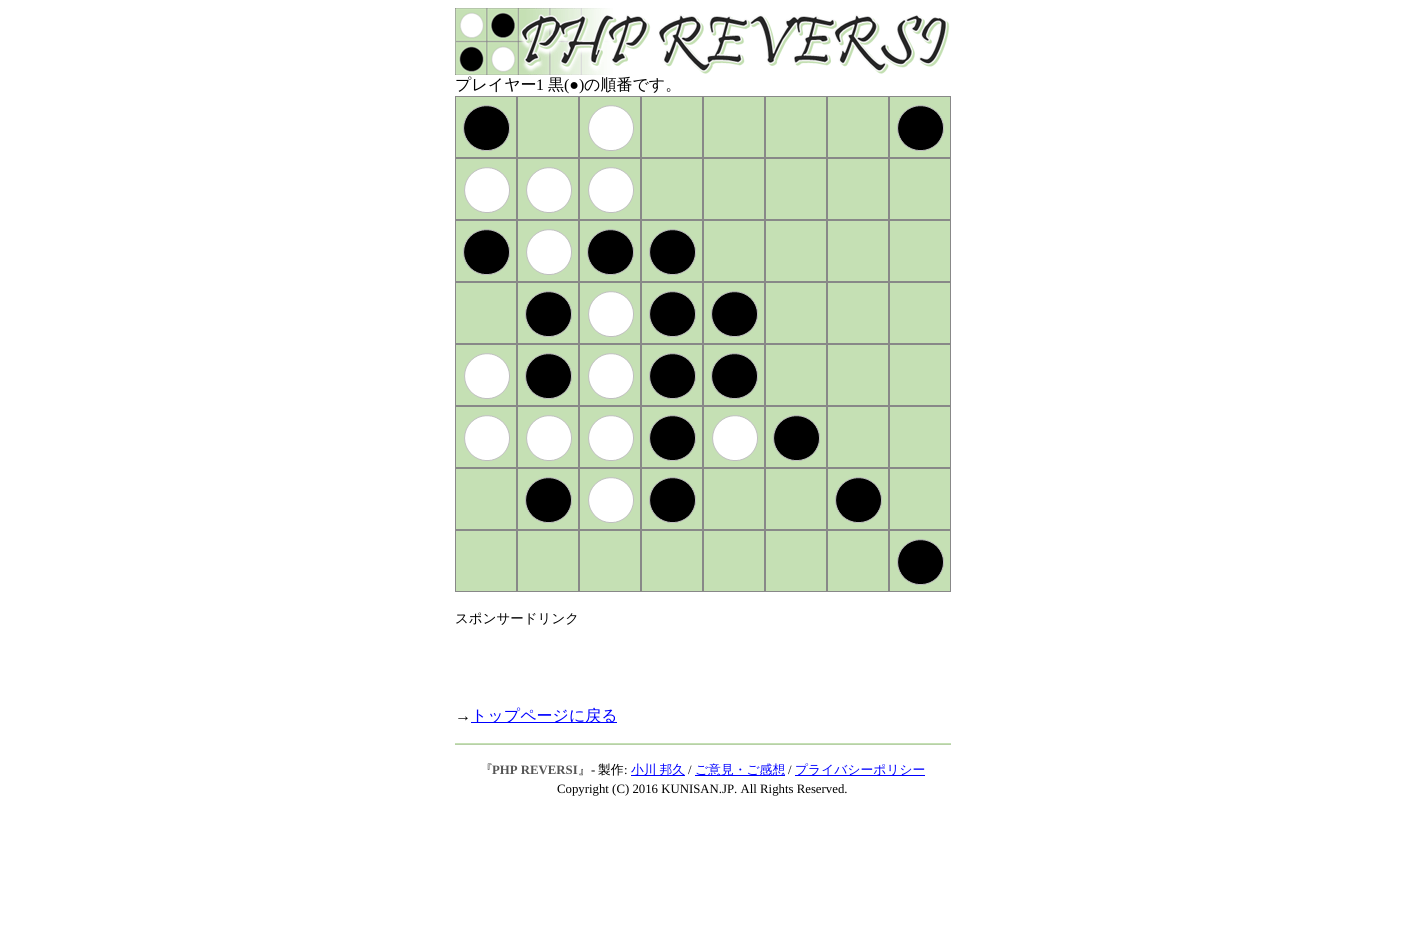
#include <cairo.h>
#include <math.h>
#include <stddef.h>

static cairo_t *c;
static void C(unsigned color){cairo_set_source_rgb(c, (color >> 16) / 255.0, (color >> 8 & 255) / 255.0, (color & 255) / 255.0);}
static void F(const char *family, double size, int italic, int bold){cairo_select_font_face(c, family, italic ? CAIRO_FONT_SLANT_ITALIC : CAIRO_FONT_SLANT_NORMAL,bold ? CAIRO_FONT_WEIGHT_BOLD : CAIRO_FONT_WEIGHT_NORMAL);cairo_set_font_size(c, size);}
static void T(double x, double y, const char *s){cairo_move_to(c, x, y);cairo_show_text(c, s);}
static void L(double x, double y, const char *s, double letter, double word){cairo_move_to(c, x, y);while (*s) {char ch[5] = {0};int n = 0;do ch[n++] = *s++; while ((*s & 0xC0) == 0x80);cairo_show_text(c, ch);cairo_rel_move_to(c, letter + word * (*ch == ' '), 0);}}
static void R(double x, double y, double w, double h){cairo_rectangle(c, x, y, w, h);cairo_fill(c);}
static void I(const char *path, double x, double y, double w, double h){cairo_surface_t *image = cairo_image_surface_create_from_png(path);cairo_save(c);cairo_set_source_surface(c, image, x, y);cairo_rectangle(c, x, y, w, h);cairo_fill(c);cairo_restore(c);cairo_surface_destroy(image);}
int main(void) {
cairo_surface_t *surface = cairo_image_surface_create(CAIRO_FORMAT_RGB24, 1405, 927);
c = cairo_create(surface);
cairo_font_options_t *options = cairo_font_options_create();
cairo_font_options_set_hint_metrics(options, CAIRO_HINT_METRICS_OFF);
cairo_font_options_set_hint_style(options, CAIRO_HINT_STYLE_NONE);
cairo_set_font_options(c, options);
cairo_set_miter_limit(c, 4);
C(0xffffff);
cairo_paint(c);
I("1.png",455,8,495,67);
F("WenQuanYi Zen Hei Medium",16,0,0);
C(0x000000);
T(455,90,"プレイヤー");
F("Liberation Serif",16,0,0);
T(536,90,"1");
F("WenQuanYi Zen Hei Medium",16,0,0);
T(548,90,"黒");
F("Liberation Serif",16,0,0);
T(564,90,"(●)");
F("WenQuanYi Zen Hei Medium",16,0,0);
T(584,90,"の順番です。");
cairo_rectangle(c,455.5,96.5,61,61);
C(0x888888);
cairo_set_line_width(c,1);
cairo_stroke(c);
cairo_rectangle(c,517.5,96.5,61,61);
cairo_stroke(c);
cairo_rectangle(c,579.5,96.5,61,61);
cairo_stroke(c);
cairo_rectangle(c,641.5,96.5,61,61);
cairo_stroke(c);
cairo_rectangle(c,703.5,96.5,61,61);
cairo_stroke(c);
cairo_rectangle(c,765.5,96.5,61,61);
cairo_stroke(c);
cairo_rectangle(c,827.5,96.5,61,61);
cairo_stroke(c);
cairo_rectangle(c,889.5,96.5,61,61);
cairo_stroke(c);
I("2.png",456,97,60,60);
C(0xc5e0b4);
R(518,97,60,60);
I("3.png",580,97,60,60);
R(642,97,60,60);
R(704,97,60,60);
R(766,97,60,60);
R(828,97,60,60);
I("2.png",890,97,60,60);
cairo_rectangle(c,455.5,158.5,61,61);
C(0x888888);
cairo_stroke(c);
cairo_rectangle(c,517.5,158.5,61,61);
cairo_stroke(c);
cairo_rectangle(c,579.5,158.5,61,61);
cairo_stroke(c);
cairo_rectangle(c,641.5,158.5,61,61);
cairo_stroke(c);
cairo_rectangle(c,703.5,158.5,61,61);
cairo_stroke(c);
cairo_rectangle(c,765.5,158.5,61,61);
cairo_stroke(c);
cairo_rectangle(c,827.5,158.5,61,61);
cairo_stroke(c);
cairo_rectangle(c,889.5,158.5,61,61);
cairo_stroke(c);
I("3.png",456,159,60,60);
I("3.png",518,159,60,60);
I("3.png",580,159,60,60);
C(0xc5e0b4);
R(642,159,60,60);
R(704,159,60,60);
R(766,159,60,60);
R(828,159,60,60);
R(890,159,60,60);
cairo_rectangle(c,455.5,220.5,61,61);
C(0x888888);
cairo_stroke(c);
cairo_rectangle(c,517.5,220.5,61,61);
cairo_stroke(c);
cairo_rectangle(c,579.5,220.5,61,61);
cairo_stroke(c);
cairo_rectangle(c,641.5,220.5,61,61);
cairo_stroke(c);
cairo_rectangle(c,703.5,220.5,61,61);
cairo_stroke(c);
cairo_rectangle(c,765.5,220.5,61,61);
cairo_stroke(c);
cairo_rectangle(c,827.5,220.5,61,61);
cairo_stroke(c);
cairo_rectangle(c,889.5,220.5,61,61);
cairo_stroke(c);
I("2.png",456,221,60,60);
I("3.png",518,221,60,60);
I("2.png",580,221,60,60);
I("2.png",642,221,60,60);
C(0xc5e0b4);
R(704,221,60,60);
R(766,221,60,60);
R(828,221,60,60);
R(890,221,60,60);
cairo_rectangle(c,455.5,282.5,61,61);
C(0x888888);
cairo_stroke(c);
cairo_rectangle(c,517.5,282.5,61,61);
cairo_stroke(c);
cairo_rectangle(c,579.5,282.5,61,61);
cairo_stroke(c);
cairo_rectangle(c,641.5,282.5,61,61);
cairo_stroke(c);
cairo_rectangle(c,703.5,282.5,61,61);
cairo_stroke(c);
cairo_rectangle(c,765.5,282.5,61,61);
cairo_stroke(c);
cairo_rectangle(c,827.5,282.5,61,61);
cairo_stroke(c);
cairo_rectangle(c,889.5,282.5,61,61);
cairo_stroke(c);
C(0xc5e0b4);
R(456,283,60,60);
I("2.png",518,283,60,60);
I("3.png",580,283,60,60);
I("2.png",642,283,60,60);
I("2.png",704,283,60,60);
R(766,283,60,60);
R(828,283,60,60);
R(890,283,60,60);
cairo_rectangle(c,455.5,344.5,61,61);
C(0x888888);
cairo_stroke(c);
cairo_rectangle(c,517.5,344.5,61,61);
cairo_stroke(c);
cairo_rectangle(c,579.5,344.5,61,61);
cairo_stroke(c);
cairo_rectangle(c,641.5,344.5,61,61);
cairo_stroke(c);
cairo_rectangle(c,703.5,344.5,61,61);
cairo_stroke(c);
cairo_rectangle(c,765.5,344.5,61,61);
cairo_stroke(c);
cairo_rectangle(c,827.5,344.5,61,61);
cairo_stroke(c);
cairo_rectangle(c,889.5,344.5,61,61);
cairo_stroke(c);
I("3.png",456,345,60,60);
I("2.png",518,345,60,60);
I("3.png",580,345,60,60);
I("2.png",642,345,60,60);
I("2.png",704,345,60,60);
C(0xc5e0b4);
R(766,345,60,60);
R(828,345,60,60);
R(890,345,60,60);
cairo_rectangle(c,455.5,406.5,61,61);
C(0x888888);
cairo_stroke(c);
cairo_rectangle(c,517.5,406.5,61,61);
cairo_stroke(c);
cairo_rectangle(c,579.5,406.5,61,61);
cairo_stroke(c);
cairo_rectangle(c,641.5,406.5,61,61);
cairo_stroke(c);
cairo_rectangle(c,703.5,406.5,61,61);
cairo_stroke(c);
cairo_rectangle(c,765.5,406.5,61,61);
cairo_stroke(c);
cairo_rectangle(c,827.5,406.5,61,61);
cairo_stroke(c);
cairo_rectangle(c,889.5,406.5,61,61);
cairo_stroke(c);
I("3.png",456,407,60,60);
I("3.png",518,407,60,60);
I("3.png",580,407,60,60);
I("2.png",642,407,60,60);
I("3.png",704,407,60,60);
I("2.png",766,407,60,60);
C(0xc5e0b4);
R(828,407,60,60);
R(890,407,60,60);
cairo_rectangle(c,455.5,468.5,61,61);
C(0x888888);
cairo_stroke(c);
cairo_rectangle(c,517.5,468.5,61,61);
cairo_stroke(c);
cairo_rectangle(c,579.5,468.5,61,61);
cairo_stroke(c);
cairo_rectangle(c,641.5,468.5,61,61);
cairo_stroke(c);
cairo_rectangle(c,703.5,468.5,61,61);
cairo_stroke(c);
cairo_rectangle(c,765.5,468.5,61,61);
cairo_stroke(c);
cairo_rectangle(c,827.5,468.5,61,61);
cairo_stroke(c);
cairo_rectangle(c,889.5,468.5,61,61);
cairo_stroke(c);
C(0xc5e0b4);
R(456,469,60,60);
I("2.png",518,469,60,60);
I("3.png",580,469,60,60);
I("2.png",642,469,60,60);
R(704,469,60,60);
R(766,469,60,60);
I("2.png",828,469,60,60);
R(890,469,60,60);
cairo_rectangle(c,455.5,530.5,61,61);
C(0x888888);
cairo_stroke(c);
cairo_rectangle(c,517.5,530.5,61,61);
cairo_stroke(c);
cairo_rectangle(c,579.5,530.5,61,61);
cairo_stroke(c);
cairo_rectangle(c,641.5,530.5,61,61);
cairo_stroke(c);
cairo_rectangle(c,703.5,530.5,61,61);
cairo_stroke(c);
cairo_rectangle(c,765.5,530.5,61,61);
cairo_stroke(c);
cairo_rectangle(c,827.5,530.5,61,61);
cairo_stroke(c);
cairo_rectangle(c,889.5,530.5,61,61);
cairo_stroke(c);
C(0xc5e0b4);
R(456,531,60,60);
R(518,531,60,60);
R(580,531,60,60);
R(642,531,60,60);
R(704,531,60,60);
R(766,531,60,60);
R(828,531,60,60);
I("2.png",890,531,60,60);
F("WenQuanYi Zen Hei Medium",13.5,0,0);
C(0x000000);
T(455,623,"スポンサードリンク");
F("Liberation Serif",16,0,0);
T(455,721,"→");
C(0x0000ff);
R(471,722,146,1);
F("WenQuanYi Zen Hei Medium",16,0,0);
T(471,721,"トップページに戻る");
I("4.png",455,743,496,2);
F("WenQuanYi Zen Hei Medium",12.8,0,0);
C(0x000000);
T(480,774,"『");
F("Liberation Serif",12.8,0,1);
C(0x555555);
T(492,774,"PHP REVERSI");
F("WenQuanYi Zen Hei Medium",12.8,0,0);
C(0x000000);
T(578,774,"』");
F("Liberation Serif",12.8,0,0);
T(591,774,"-");
F("WenQuanYi Zen Hei Medium",12.8,0,0);
T(598,774,"製作");
F("Liberation Serif",12.8,0,0);
T(624,774,":");
C(0x0000ff);
R(631,775,54,1);
F("WenQuanYi Zen Hei Medium",12.8,0,0);
L(631,774,"小川 邦久",0,-1);
F("Liberation Serif",12.8,0,0);
C(0x000000);
T(688,774,"/");
C(0x0000ff);
R(695,775,90,1);
F("WenQuanYi Zen Hei Medium",12.8,0,0);
T(695,774,"ご意見・ご感想");
F("Liberation Serif",12.8,0,0);
C(0x000000);
T(788,774,"/");
C(0x0000ff);
R(795,775,130,1);
F("WenQuanYi Zen Hei Medium",12.8,0,0);
T(795,774,"プライバシーポリシー");
F("Liberation Serif",12.8,0,0);
C(0x000000);
T(557,793,"Copyright (C) 2016 KUNISAN.JP. All Rights Reserved.");
cairo_surface_write_to_png(surface, "o.png");
cairo_font_options_destroy(options);
cairo_destroy(c);
cairo_surface_destroy(surface);
return 0;
}
